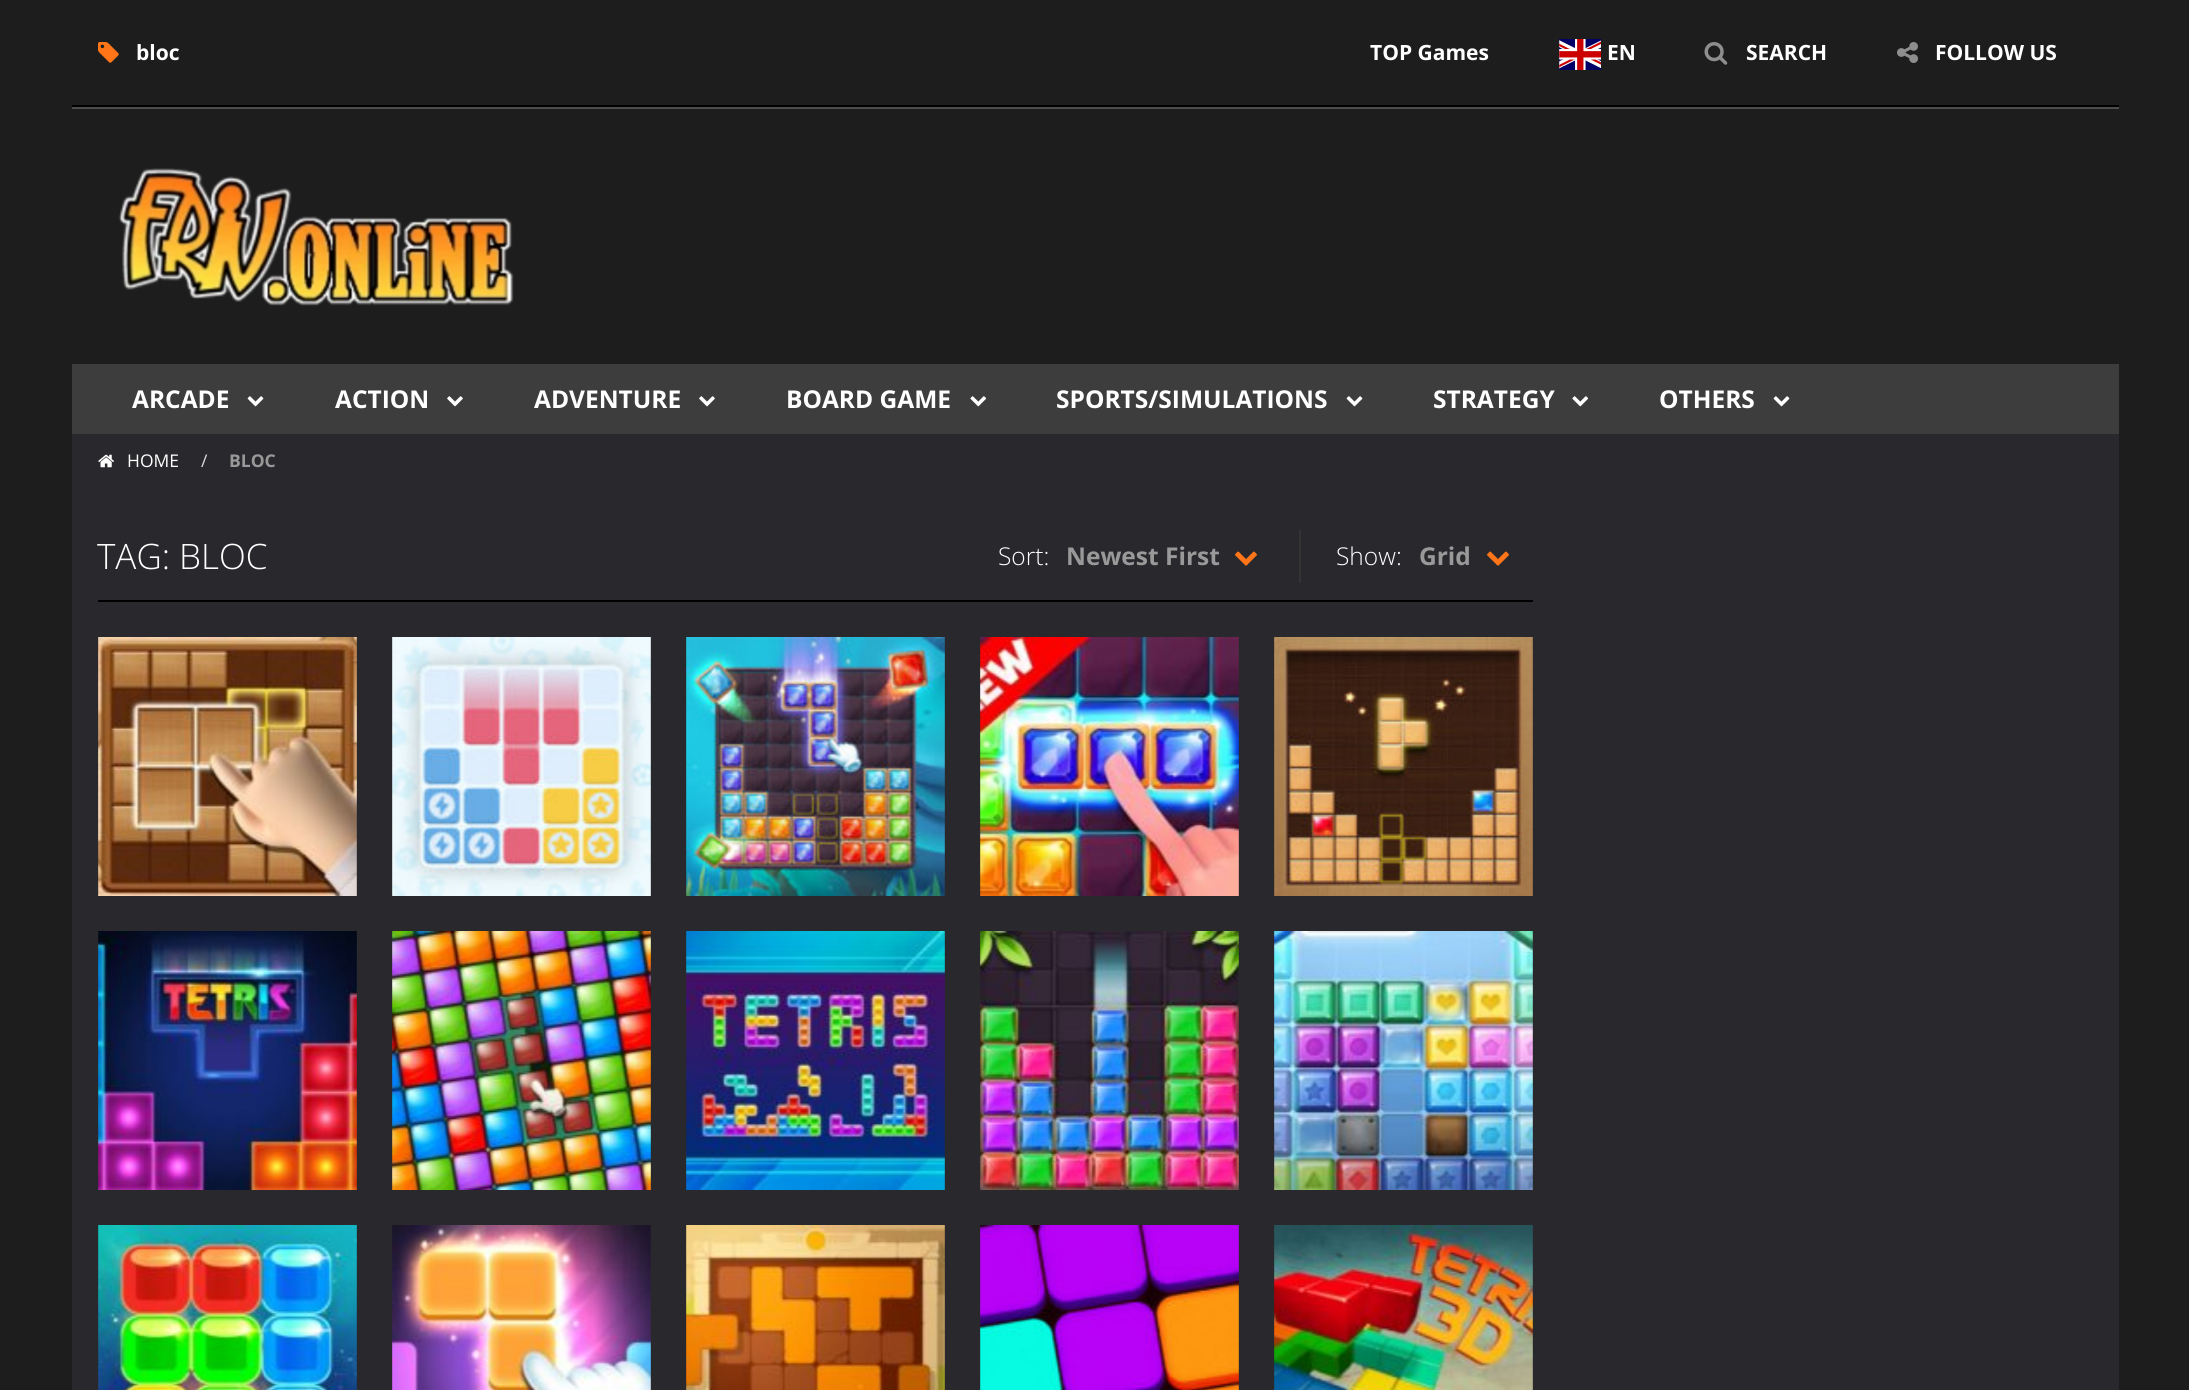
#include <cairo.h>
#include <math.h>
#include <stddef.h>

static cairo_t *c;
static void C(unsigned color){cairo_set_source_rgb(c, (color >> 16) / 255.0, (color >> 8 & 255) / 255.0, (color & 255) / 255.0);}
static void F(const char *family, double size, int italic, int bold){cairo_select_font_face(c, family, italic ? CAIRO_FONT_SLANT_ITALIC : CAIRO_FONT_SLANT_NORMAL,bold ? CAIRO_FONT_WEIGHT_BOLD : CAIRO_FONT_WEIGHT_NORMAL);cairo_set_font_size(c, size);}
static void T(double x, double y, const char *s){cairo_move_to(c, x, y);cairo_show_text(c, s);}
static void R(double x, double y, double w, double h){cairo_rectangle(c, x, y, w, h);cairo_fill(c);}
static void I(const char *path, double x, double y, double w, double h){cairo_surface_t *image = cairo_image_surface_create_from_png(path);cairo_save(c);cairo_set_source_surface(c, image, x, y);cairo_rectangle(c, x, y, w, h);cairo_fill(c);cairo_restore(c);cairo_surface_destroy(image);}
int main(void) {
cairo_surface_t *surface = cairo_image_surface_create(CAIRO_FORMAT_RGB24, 2189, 1390);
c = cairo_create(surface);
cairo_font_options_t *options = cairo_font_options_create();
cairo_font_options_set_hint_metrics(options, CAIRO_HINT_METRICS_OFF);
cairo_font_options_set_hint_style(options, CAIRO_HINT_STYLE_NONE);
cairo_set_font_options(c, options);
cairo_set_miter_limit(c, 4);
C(0x1d1d1d);
cairo_paint(c);
C(0x000000);
R(72,105,2047,2);
I("1.png",98,42,21,21);
F("Open Sans",21,0,1);
C(0xffffff);
T(136,60,"bloc");
T(1370,60,"TOP Games");
I("2.png",1559,39,42,31);
T(1607,60,"EN");
I("3.png",1704,42,24,23);
T(1746,60,"SEARCH");
I("4.png",1897,42,21,21);
T(1935,60,"FOLLOW US");
C(0x4d4d4d);
R(72,107,2047,2);
I("5.png",118,168,396,138);
C(0x3d3d3d);
R(72,364,2047,70);
F("Open Sans",24.5,0,1);
C(0xffffff);
T(132,408,"ARCADE");
I("6.png",247,396,17,11);
T(335,408,"ACTION");
I("7.png",447,396,16,11);
T(534,408,"ADVENTURE");
I("7.png",699,396,16,11);
T(786,408,"BOARD GAME");
I("8.png",970,396,17,11);
T(1056,408,"SPORTS/SIMULATIONS");
I("9.png",1346,396,17,11);
T(1433,408,"STRATEGY");
I("8.png",1572,396,17,11);
T(1659,408,"OTHERS");
I("9.png",1773,396,17,11);
C(0x29292d);
R(72,434,2047,956);
I("10.png",98,454,16,14);
F("Open Sans",17.5,0,0);
C(0xffffff);
T(127,467,"HOME");
C(0xdddddd);
T(201,467,"/");
F("Open Sans",17.5,0,1);
C(0x999999);
T(229,467,"BLOC");
C(0x000000);
R(98,600,1435,2);
F("Open Sans Light",35,0,0);
C(0xffffff);
T(97,569,"TAG: BLOC");
C(0x333333);
R(1299,530,2,53);
F("Open Sans Light",24.5,0,0);
C(0xffffff);
T(998,565,"Sort:");
F("Open Sans",24.5,0,1);
C(0x999999);
T(1066,565,"Newest First");
I("11.png",1235,551,22,15);
F("Open Sans Light",24.5,0,0);
C(0xffffff);
T(1336,565,"Show:");
F("Open Sans",24.5,0,1);
C(0x999999);
T(1419,565,"Grid");
I("11.png",1487,551,22,15);
I("12.png",98,637,259,259);
I("13.png",392,637,259,259);
I("14.png",686,637,259,259);
I("15.png",980,637,259,259);
I("16.png",1274,637,259,259);
I("17.png",98,931,259,259);
I("18.png",392,931,259,259);
I("19.png",686,931,259,259);
I("20.png",980,931,259,259);
I("21.png",1274,931,259,259);
I("22.png",98,1225,259,165);
I("23.png",392,1225,259,165);
I("24.png",686,1225,259,165);
I("25.png",980,1225,259,165);
I("26.png",1274,1225,259,165);
cairo_surface_write_to_png(surface, "o.png");
cairo_font_options_destroy(options);
cairo_destroy(c);
cairo_surface_destroy(surface);
return 0;
}
